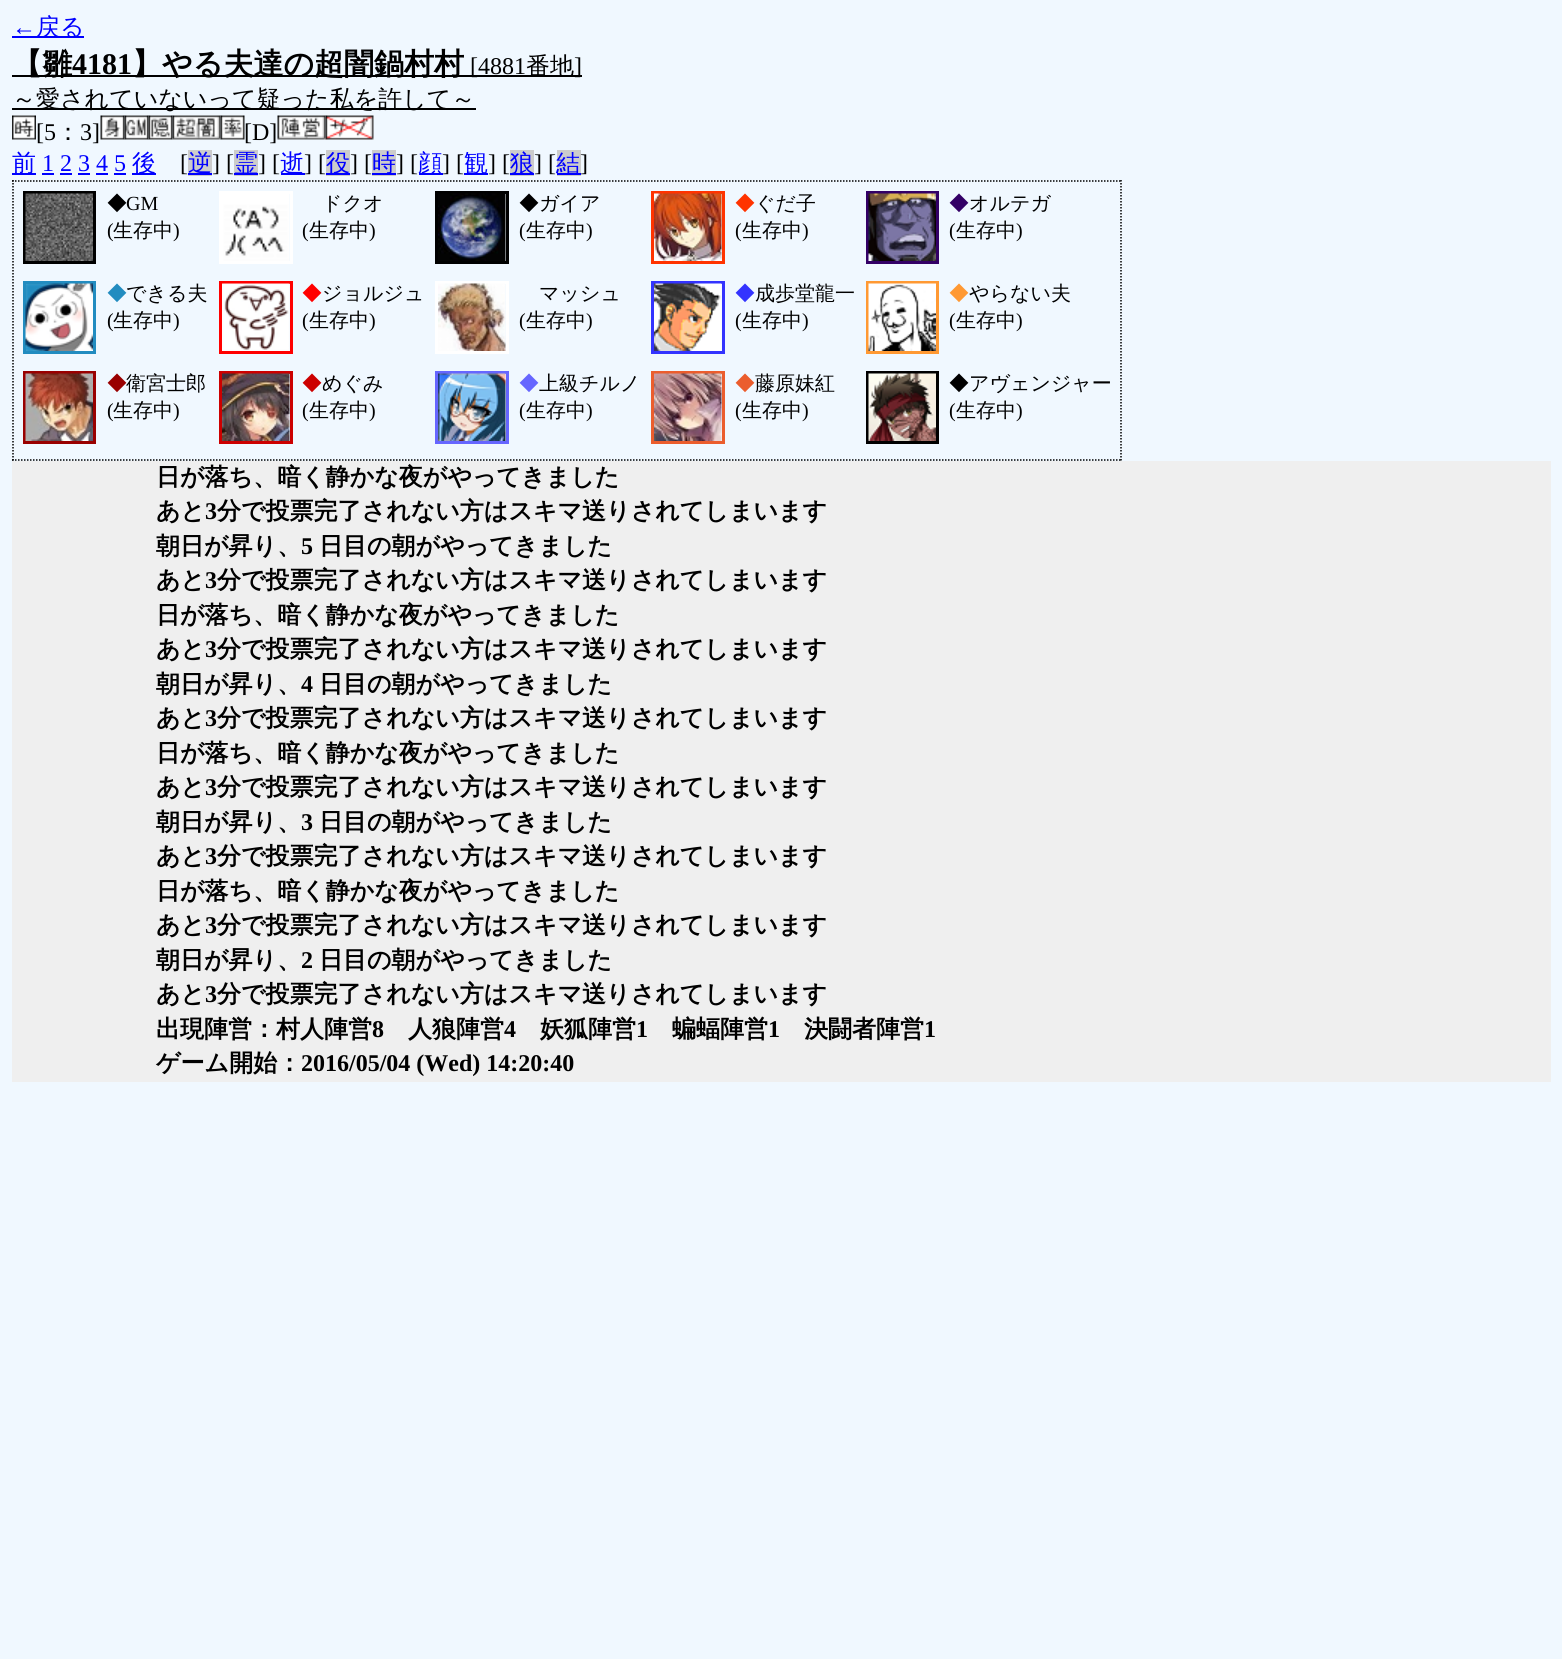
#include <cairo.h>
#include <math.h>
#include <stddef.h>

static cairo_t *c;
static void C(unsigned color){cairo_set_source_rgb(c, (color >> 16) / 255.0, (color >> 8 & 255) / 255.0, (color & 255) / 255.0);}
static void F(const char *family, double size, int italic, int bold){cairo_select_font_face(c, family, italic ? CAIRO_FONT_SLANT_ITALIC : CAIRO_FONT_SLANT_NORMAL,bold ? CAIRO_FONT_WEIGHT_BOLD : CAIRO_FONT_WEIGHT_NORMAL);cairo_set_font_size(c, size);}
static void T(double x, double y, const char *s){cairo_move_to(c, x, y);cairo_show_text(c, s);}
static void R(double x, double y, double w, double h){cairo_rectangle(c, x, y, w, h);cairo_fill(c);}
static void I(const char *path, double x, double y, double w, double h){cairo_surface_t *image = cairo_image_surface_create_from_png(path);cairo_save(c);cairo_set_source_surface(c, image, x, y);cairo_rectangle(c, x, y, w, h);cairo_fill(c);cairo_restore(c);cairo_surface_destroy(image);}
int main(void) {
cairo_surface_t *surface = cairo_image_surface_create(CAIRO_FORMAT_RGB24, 1562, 1659);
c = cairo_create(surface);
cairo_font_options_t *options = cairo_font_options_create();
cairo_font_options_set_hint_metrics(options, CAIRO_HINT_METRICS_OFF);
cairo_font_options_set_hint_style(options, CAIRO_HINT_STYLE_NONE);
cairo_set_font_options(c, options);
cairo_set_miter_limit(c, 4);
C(0xf0f8ff);
cairo_paint(c);
F("Liberation Serif",24,0,0);
C(0x0000ff);
T(12,35,"←");
R(12,36,72,2);
F("WenQuanYi Zen Hei Medium",24,0,0);
T(36,35,"戻る");
C(0x000000);
R(12,75,570,2);
F("WenQuanYi Zen Hei",30,0,1);
T(12,74,"【雛");
F("Liberation Serif",30,0,1);
T(72,74,"4181");
F("WenQuanYi Zen Hei",30,0,1);
T(132,74,"】やる夫達の超闇鍋村村");
F("Liberation Serif",24,0,0);
T(470,74,"[4881");
F("WenQuanYi Zen Hei Medium",24,0,0);
T(526,74,"番地");
F("Liberation Serif",24,0,0);
T(574,74,"]");
R(12,108,464,2);
F("WenQuanYi Zen Hei Medium",24,0,0);
T(12,107,"～愛されていないって疑った私を許して～");
I("1.png",12,115,24,25);
F("Liberation Serif",24,0,0);
T(36,140,"[5");
F("WenQuanYi Zen Hei Medium",24,0,0);
T(56,140,"：");
F("Liberation Serif",24,0,0);
T(80,140,"3]");
I("2.png",100,115,25,25);
I("3.png",124,115,25,25);
I("4.png",148,115,25,25);
I("5.png",172,115,49,25);
I("6.png",220,115,25,25);
T(244,140,"[D]");
I("7.png",277,115,49,25);
I("8.png",325,115,49,25);
C(0x0000ff);
R(12,173,24,2);
F("WenQuanYi Zen Hei Medium",24,0,0);
T(12,171,"前");
F("Liberation Serif",24,0,0);
T(42,171,"1 2 3 4 5");
R(42,173,12,2);
R(132,173,24,2);
F("WenQuanYi Zen Hei Medium",24,0,0);
T(132,171,"後");
F("Liberation Serif",24,0,0);
C(0x000000);
T(180,171,"[");
C(0xcccccc);
R(188,150,24,26);
C(0x0000ff);
R(188,173,24,2);
F("WenQuanYi Zen Hei Medium",24,0,0);
T(188,171,"逆");
F("Liberation Serif",24,0,0);
C(0x000000);
T(212,171,"] [");
C(0xcccccc);
R(234,150,24,26);
C(0x0000ff);
R(234,173,24,2);
F("WenQuanYi Zen Hei Medium",24,0,0);
T(234,171,"霊");
F("Liberation Serif",24,0,0);
C(0x000000);
T(258,171,"] [");
C(0x0000ff);
R(281,173,24,2);
F("WenQuanYi Zen Hei Medium",24,0,0);
T(280,171,"逝");
F("Liberation Serif",24,0,0);
C(0x000000);
T(304,171,"] [");
C(0xcccccc);
R(326,150,24,26);
C(0x0000ff);
R(326,173,24,2);
F("WenQuanYi Zen Hei Medium",24,0,0);
T(326,171,"役");
F("Liberation Serif",24,0,0);
C(0x000000);
T(350,171,"] [");
C(0xcccccc);
R(372,150,24,26);
C(0x0000ff);
R(372,173,24,2);
F("WenQuanYi Zen Hei Medium",24,0,0);
T(372,171,"時");
F("Liberation Serif",24,0,0);
C(0x000000);
T(396,171,"] [");
C(0x0000ff);
R(419,173,24,2);
F("WenQuanYi Zen Hei Medium",24,0,0);
T(418,171,"顔");
F("Liberation Serif",24,0,0);
C(0x000000);
T(442,171,"] [");
C(0x0000ff);
R(464,173,24,2);
F("WenQuanYi Zen Hei Medium",24,0,0);
T(464,171,"観");
F("Liberation Serif",24,0,0);
C(0x000000);
T(488,171,"] [");
C(0xcccccc);
R(510,150,24,26);
C(0x0000ff);
R(510,173,24,2);
F("WenQuanYi Zen Hei Medium",24,0,0);
T(510,171,"狼");
F("Liberation Serif",24,0,0);
C(0x000000);
T(534,171,"] [");
C(0xcccccc);
R(557,150,24,26);
C(0x0000ff);
R(557,173,24,2);
F("WenQuanYi Zen Hei Medium",24,0,0);
T(556,171,"結");
F("Liberation Serif",24,0,0);
C(0x000000);
T(580,171,"]");
C(0x0000ff);
R(60,173,12,2);
R(78,173,12,2);
R(96,173,12,2);
R(114,173,12,2);
cairo_new_path(c);
cairo_move_to(c,12,181);
cairo_line_to(c,1122,181);
C(0x000000);
cairo_set_line_width(c,1.5);
cairo_set_dash(c,(double[]){1.5,1.5},2,0);
cairo_stroke(c);
cairo_new_path(c);
cairo_move_to(c,1121,180);
cairo_line_to(c,1121,460.5);
cairo_stroke(c);
cairo_new_path(c);
cairo_move_to(c,12,460);
cairo_line_to(c,1122,460);
cairo_stroke(c);
cairo_new_path(c);
cairo_move_to(c,13,180);
cairo_line_to(c,13,460.5);
cairo_stroke(c);
cairo_rectangle(c,24.5,192.5,70,70);
cairo_set_line_width(c,3);
cairo_set_dash(c,NULL,0,0);
cairo_stroke(c);
I("9.png",25,193,68,68);
F("WenQuanYi Zen Hei Medium",20,0,0);
T(107,210,"◆");
F("Liberation Serif",20,0,0);
T(126,210,"GM");
T(107,237,"(");
F("WenQuanYi Zen Hei Medium",20,0,0);
T(113,237,"生存中");
F("Liberation Serif",20,0,0);
T(173,237,")");
cairo_rectangle(c,220.5,192.5,71,70);
C(0xffffff);
cairo_stroke(c);
I("10.png",222,194,68,67);
F("WenQuanYi Zen Hei Medium",20,0,0);
C(0x000000);
T(322,210,"ドクオ");
F("Liberation Serif",20,0,0);
T(302,237,"(");
F("WenQuanYi Zen Hei Medium",20,0,0);
T(309,237,"生存中");
F("Liberation Serif",20,0,0);
T(369,237,")");
cairo_rectangle(c,436.5,192.5,71,70);
cairo_stroke(c);
I("11.png",438,193,68,68);
F("WenQuanYi Zen Hei Medium",20,0,0);
T(519,210,"◆ガイア");
F("Liberation Serif",20,0,0);
T(519,237,"(");
F("WenQuanYi Zen Hei Medium",20,0,0);
T(526,237,"生存中");
F("Liberation Serif",20,0,0);
T(586,237,")");
cairo_rectangle(c,652.5,192.5,71,70);
C(0xff3300);
cairo_stroke(c);
I("12.png",654,193,68,68);
F("WenQuanYi Zen Hei Medium",20,0,0);
T(735,210,"◆");
C(0x000000);
T(755,210,"ぐだ子");
F("Liberation Serif",20,0,0);
T(735,237,"(");
F("WenQuanYi Zen Hei Medium",20,0,0);
T(742,237,"生存中");
F("Liberation Serif",20,0,0);
T(802,237,")");
cairo_rectangle(c,867.5,192.5,70,70);
C(0x330066);
cairo_stroke(c);
I("13.png",868,193,68,68);
F("WenQuanYi Zen Hei Medium",20,0,0);
T(949,210,"◆");
C(0x000000);
T(969,210,"オルテガ");
F("Liberation Serif",20,0,0);
T(949,237,"(");
F("WenQuanYi Zen Hei Medium",20,0,0);
T(956,237,"生存中");
F("Liberation Serif",20,0,0);
T(1016,237,")");
cairo_rectangle(c,24.5,282.5,70,70);
C(0x228cc0);
cairo_stroke(c);
I("14.png",25,283,68,68);
F("WenQuanYi Zen Hei Medium",20,0,0);
T(107,300,"◆");
C(0x000000);
T(126,300,"できる夫");
F("Liberation Serif",20,0,0);
T(107,327,"(");
F("WenQuanYi Zen Hei Medium",20,0,0);
T(113,327,"生存中");
F("Liberation Serif",20,0,0);
T(173,327,")");
cairo_rectangle(c,220.5,282.5,71,70);
C(0xff0000);
cairo_stroke(c);
I("15.png",222,283,68,68);
F("WenQuanYi Zen Hei Medium",20,0,0);
T(302,300,"◆");
C(0x000000);
T(322,300,"ジョルジュ");
F("Liberation Serif",20,0,0);
T(302,327,"(");
F("WenQuanYi Zen Hei Medium",20,0,0);
T(309,327,"生存中");
F("Liberation Serif",20,0,0);
T(369,327,")");
cairo_rectangle(c,436.5,282.5,71,70);
C(0xffffff);
cairo_stroke(c);
I("16.png",438,283,68,68);
F("WenQuanYi Zen Hei Medium",20,0,0);
C(0x000000);
T(539,300,"マッシュ");
F("Liberation Serif",20,0,0);
T(519,327,"(");
F("WenQuanYi Zen Hei Medium",20,0,0);
T(526,327,"生存中");
F("Liberation Serif",20,0,0);
T(586,327,")");
cairo_rectangle(c,652.5,282.5,71,70);
C(0x3333ff);
cairo_stroke(c);
I("17.png",654,283,68,68);
F("WenQuanYi Zen Hei Medium",20,0,0);
T(735,300,"◆");
C(0x000000);
T(755,300,"成歩堂龍一");
F("Liberation Serif",20,0,0);
T(735,327,"(");
F("WenQuanYi Zen Hei Medium",20,0,0);
T(742,327,"生存中");
F("Liberation Serif",20,0,0);
T(802,327,")");
cairo_rectangle(c,867.5,282.5,70,70);
C(0xff9933);
cairo_stroke(c);
I("18.png",868,283,68,68);
F("WenQuanYi Zen Hei Medium",20,0,0);
T(949,300,"◆");
C(0x000000);
T(969,300,"やらない夫");
F("Liberation Serif",20,0,0);
T(949,327,"(");
F("WenQuanYi Zen Hei Medium",20,0,0);
T(956,327,"生存中");
F("Liberation Serif",20,0,0);
T(1016,327,")");
cairo_rectangle(c,24.5,372.5,70,70);
C(0x990000);
cairo_stroke(c);
I("19.png",25,373,68,68);
F("WenQuanYi Zen Hei Medium",20,0,0);
T(107,390,"◆");
C(0x000000);
T(126,390,"衛宮士郎");
F("Liberation Serif",20,0,0);
T(107,417,"(");
F("WenQuanYi Zen Hei Medium",20,0,0);
T(113,417,"生存中");
F("Liberation Serif",20,0,0);
T(173,417,")");
cairo_rectangle(c,220.5,372.5,71,70);
C(0xcc0000);
cairo_stroke(c);
I("20.png",222,373,68,68);
F("WenQuanYi Zen Hei Medium",20,0,0);
T(302,390,"◆");
C(0x000000);
T(322,390,"めぐみ");
F("Liberation Serif",20,0,0);
T(302,417,"(");
F("WenQuanYi Zen Hei Medium",20,0,0);
T(309,417,"生存中");
F("Liberation Serif",20,0,0);
T(369,417,")");
cairo_rectangle(c,436.5,372.5,71,70);
C(0x6666ff);
cairo_stroke(c);
I("21.png",438,373,68,68);
F("WenQuanYi Zen Hei Medium",20,0,0);
T(519,390,"◆");
C(0x000000);
T(539,390,"上級チルノ");
F("Liberation Serif",20,0,0);
T(519,417,"(");
F("WenQuanYi Zen Hei Medium",20,0,0);
T(526,417,"生存中");
F("Liberation Serif",20,0,0);
T(586,417,")");
cairo_rectangle(c,652.5,372.5,71,70);
C(0xeb5d2d);
cairo_stroke(c);
I("22.png",654,373,68,68);
F("WenQuanYi Zen Hei Medium",20,0,0);
T(735,390,"◆");
C(0x000000);
T(755,390,"藤原妹紅");
F("Liberation Serif",20,0,0);
T(735,417,"(");
F("WenQuanYi Zen Hei Medium",20,0,0);
T(742,417,"生存中");
F("Liberation Serif",20,0,0);
T(802,417,")");
cairo_rectangle(c,867.5,372.5,70,70);
cairo_stroke(c);
I("23.png",868,373,68,68);
F("WenQuanYi Zen Hei Medium",20,0,0);
T(949,390,"◆アヴェンジャー");
F("Liberation Serif",20,0,0);
T(949,417,"(");
F("WenQuanYi Zen Hei Medium",20,0,0);
T(956,417,"生存中");
F("Liberation Serif",20,0,0);
T(1016,417,")");
C(0xefefef);
R(12,461,1539,621);
F("WenQuanYi Zen Hei",24,0,1);
C(0x000000);
T(156,485,"日が落ち、暗く静かな夜がやってきました");
T(156,519,"あと");
F("Liberation Serif",24,0,1);
T(205,519,"3");
F("WenQuanYi Zen Hei",24,0,1);
T(217,519,"分で投票完了されない方はスキマ送りされてしまいます");
T(156,554,"朝日が昇り、");
F("Liberation Serif",24,0,1);
T(301,554,"5");
F("WenQuanYi Zen Hei",24,0,1);
T(319,554,"日目の朝がやってきました");
T(156,588,"あと");
F("Liberation Serif",24,0,1);
T(205,588,"3");
F("WenQuanYi Zen Hei",24,0,1);
T(217,588,"分で投票完了されない方はスキマ送りされてしまいます");
T(156,623,"日が落ち、暗く静かな夜がやってきました");
T(156,657,"あと");
F("Liberation Serif",24,0,1);
T(205,657,"3");
F("WenQuanYi Zen Hei",24,0,1);
T(217,657,"分で投票完了されない方はスキマ送りされてしまいます");
T(156,692,"朝日が昇り、");
F("Liberation Serif",24,0,1);
T(301,692,"4");
F("WenQuanYi Zen Hei",24,0,1);
T(319,692,"日目の朝がやってきました");
T(156,726,"あと");
F("Liberation Serif",24,0,1);
T(205,726,"3");
F("WenQuanYi Zen Hei",24,0,1);
T(217,726,"分で投票完了されない方はスキマ送りされてしまいます");
T(156,761,"日が落ち、暗く静かな夜がやってきました");
T(156,795,"あと");
F("Liberation Serif",24,0,1);
T(205,795,"3");
F("WenQuanYi Zen Hei",24,0,1);
T(217,795,"分で投票完了されない方はスキマ送りされてしまいます");
T(156,830,"朝日が昇り、");
F("Liberation Serif",24,0,1);
T(301,830,"3");
F("WenQuanYi Zen Hei",24,0,1);
T(319,830,"日目の朝がやってきました");
T(156,864,"あと");
F("Liberation Serif",24,0,1);
T(205,864,"3");
F("WenQuanYi Zen Hei",24,0,1);
T(217,864,"分で投票完了されない方はスキマ送りされてしまいます");
T(156,899,"日が落ち、暗く静かな夜がやってきました");
T(156,933,"あと");
F("Liberation Serif",24,0,1);
T(205,933,"3");
F("WenQuanYi Zen Hei",24,0,1);
T(217,933,"分で投票完了されない方はスキマ送りされてしまいます");
T(156,968,"朝日が昇り、");
F("Liberation Serif",24,0,1);
T(301,968,"2");
F("WenQuanYi Zen Hei",24,0,1);
T(319,968,"日目の朝がやってきました");
T(156,1002,"あと");
F("Liberation Serif",24,0,1);
T(205,1002,"3");
F("WenQuanYi Zen Hei",24,0,1);
T(217,1002,"分で投票完了されない方はスキマ送りされてしまいます");
T(156,1037,"出現陣営：村人陣営");
F("Liberation Serif",24,0,1);
T(372,1037,"8");
F("WenQuanYi Zen Hei",24,0,1);
T(408,1037,"人狼陣営");
F("Liberation Serif",24,0,1);
T(504,1037,"4");
F("WenQuanYi Zen Hei",24,0,1);
T(540,1037,"妖狐陣営");
F("Liberation Serif",24,0,1);
T(636,1037,"1");
F("WenQuanYi Zen Hei",24,0,1);
T(672,1037,"蝙蝠陣営");
F("Liberation Serif",24,0,1);
T(768,1037,"1");
F("WenQuanYi Zen Hei",24,0,1);
T(804,1037,"決闘者陣営");
F("Liberation Serif",24,0,1);
T(924,1037,"1");
F("WenQuanYi Zen Hei",24,0,1);
T(156,1071,"ゲーム開始：");
F("Liberation Serif",24,0,1);
T(301,1071,"2016/05/04 (Wed) 14:20:40");
cairo_surface_write_to_png(surface, "o.png");
cairo_font_options_destroy(options);
cairo_destroy(c);
cairo_surface_destroy(surface);
return 0;
}
